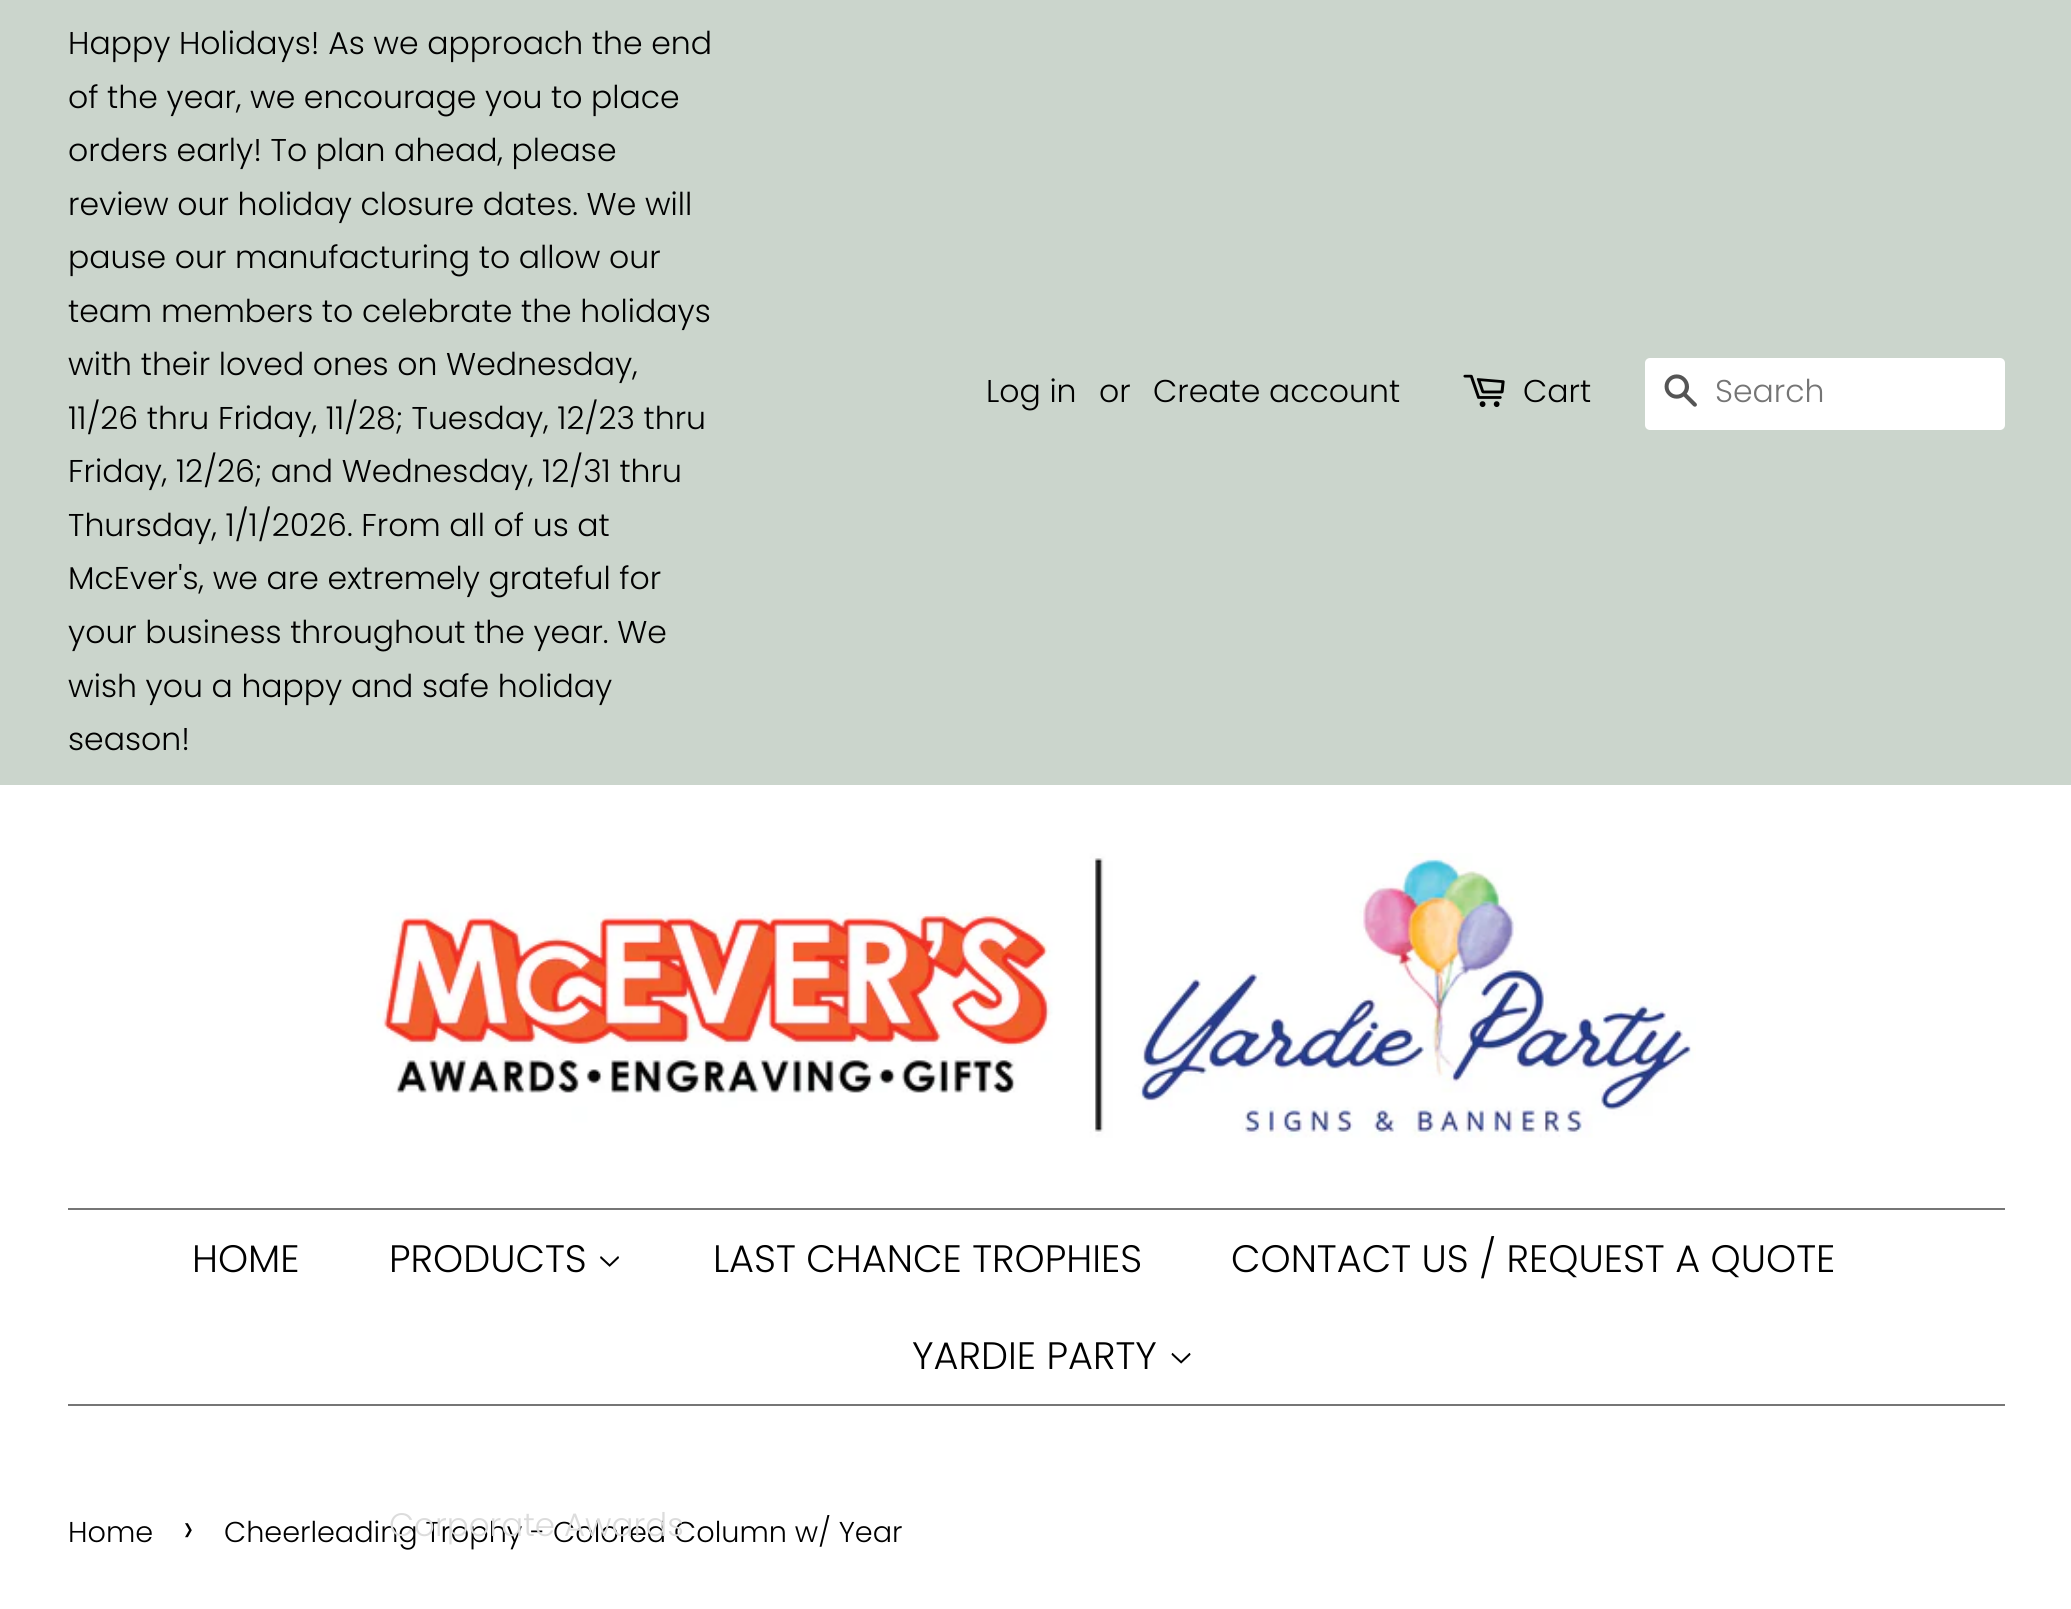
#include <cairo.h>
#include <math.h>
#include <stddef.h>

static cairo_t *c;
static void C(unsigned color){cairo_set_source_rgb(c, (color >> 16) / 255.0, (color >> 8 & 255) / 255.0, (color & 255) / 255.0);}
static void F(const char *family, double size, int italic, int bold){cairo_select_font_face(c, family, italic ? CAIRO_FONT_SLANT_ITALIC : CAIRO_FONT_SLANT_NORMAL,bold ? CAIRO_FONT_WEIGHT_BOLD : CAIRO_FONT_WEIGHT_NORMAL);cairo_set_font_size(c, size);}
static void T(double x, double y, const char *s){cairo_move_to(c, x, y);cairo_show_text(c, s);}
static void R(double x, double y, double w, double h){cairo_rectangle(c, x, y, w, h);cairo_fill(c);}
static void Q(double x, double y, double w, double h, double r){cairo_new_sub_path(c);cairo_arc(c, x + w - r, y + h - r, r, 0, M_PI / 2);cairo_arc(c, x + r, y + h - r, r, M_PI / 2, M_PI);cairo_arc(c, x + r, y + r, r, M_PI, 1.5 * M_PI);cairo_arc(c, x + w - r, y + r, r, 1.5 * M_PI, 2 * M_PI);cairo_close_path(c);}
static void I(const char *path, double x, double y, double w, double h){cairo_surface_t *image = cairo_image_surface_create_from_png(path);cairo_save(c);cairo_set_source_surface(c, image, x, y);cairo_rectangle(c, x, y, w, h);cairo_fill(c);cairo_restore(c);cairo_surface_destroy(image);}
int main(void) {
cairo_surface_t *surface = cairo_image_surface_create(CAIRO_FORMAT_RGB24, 2071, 1609);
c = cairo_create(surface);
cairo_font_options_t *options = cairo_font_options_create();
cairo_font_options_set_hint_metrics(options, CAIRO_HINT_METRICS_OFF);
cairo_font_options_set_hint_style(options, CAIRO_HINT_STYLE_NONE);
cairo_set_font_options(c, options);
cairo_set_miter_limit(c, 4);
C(0xffffff);
cairo_paint(c);
C(0xcbd5cc);
R(0,0,2071,785);
F("Poppins Light",31.5,0,0);
C(0x000000);
T(68,54,"Happy Holidays! As we approach the end");
T(68,108,"of the year, we encourage you to place");
T(68,161,"orders early! To plan ahead, please");
T(68,215,"review our holiday closure dates. We will");
T(68,268,"pause our manufacturing to allow our");
T(68,322,"team members to celebrate the holidays");
T(68,375,"with their loved ones on Wednesday,");
T(68,429,"11/26 thru Friday, 11/28; Tuesday, 12/23 thru");
T(68,482,"Friday, 12/26; and Wednesday, 12/31 thru");
T(68,536,"Thursday, 1/1/2026. From all of us at");
T(68,589,"McEver's, we are extremely grateful for");
T(68,643,"your business throughout the year. We");
T(68,697,"wish you a happy and safe holiday");
T(68,750,"season!");
T(986,402,"Log in");
T(1099,402,"or");
T(1153,402,"Create account");
I("1.png",1463,374,42,34);
T(1523,402,"Cart");
C(0xffffff);
Q(1645,358,360,72,5);
cairo_fill(c);
I("2.png",1664,374,33,33);
C(0x757575);
T(1715,402,"Search");
I("3.png",376,853,1320,285);
C(0x767676);
R(68,1208,1937,2);
R(68,1404,1937,2);
F("Poppins Light",38.25,0,0);
C(0x000000);
T(192,1272,"HOME");
T(389,1272,"PRODUCTS");
I("4.png",600,1256,19,11);
F("Poppins Light",28.7,0,0);
T(224,1542,"Cheerleading Trophy - Colored Column w/ Year");
F("Poppins Light",32.5,0,0);
C(0xdcdcdc);
T(389,1536,"Corporate Awards");
F("Poppins Light",38.25,0,0);
C(0x000000);
T(713,1272,"LAST CHANCE TROPHIES");
T(1231,1272,"CONTACT US / REQUEST A QUOTE");
T(912,1369,"YARDIE PARTY");
I("5.png",1171,1352,20,12);
F("Poppins Light",28.7,0,0);
T(68,1542,"Home");
F("Poppins Light",40,0,0);
T(183,1542,"›");
cairo_surface_write_to_png(surface, "o.png");
cairo_font_options_destroy(options);
cairo_destroy(c);
cairo_surface_destroy(surface);
return 0;
}
